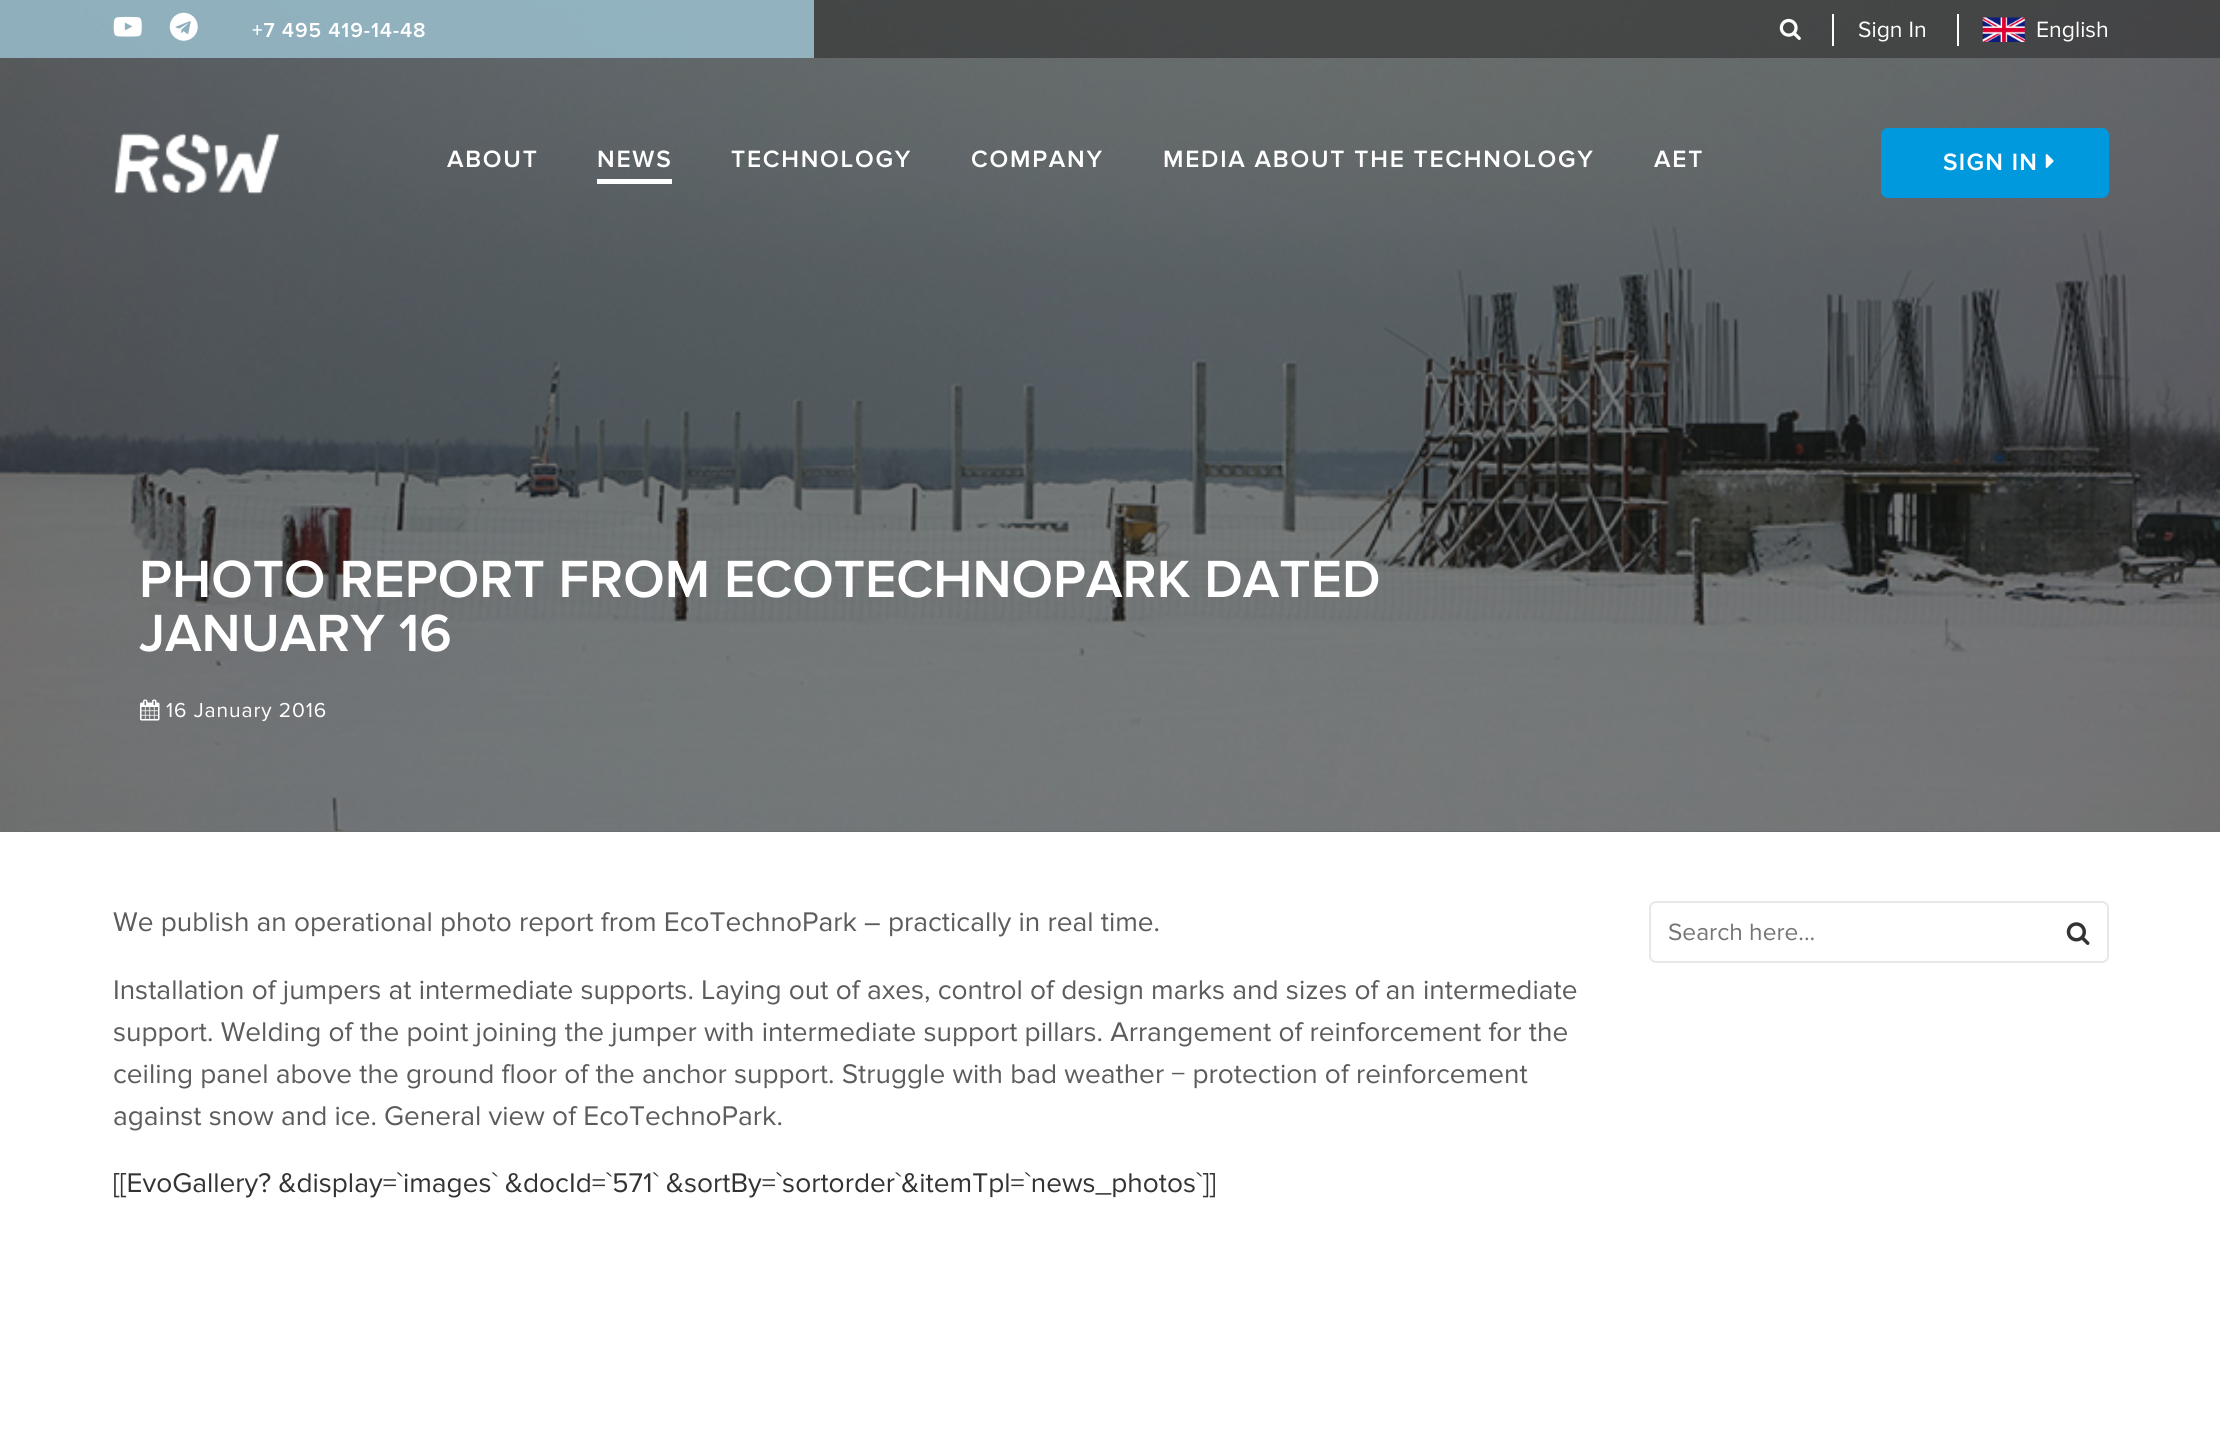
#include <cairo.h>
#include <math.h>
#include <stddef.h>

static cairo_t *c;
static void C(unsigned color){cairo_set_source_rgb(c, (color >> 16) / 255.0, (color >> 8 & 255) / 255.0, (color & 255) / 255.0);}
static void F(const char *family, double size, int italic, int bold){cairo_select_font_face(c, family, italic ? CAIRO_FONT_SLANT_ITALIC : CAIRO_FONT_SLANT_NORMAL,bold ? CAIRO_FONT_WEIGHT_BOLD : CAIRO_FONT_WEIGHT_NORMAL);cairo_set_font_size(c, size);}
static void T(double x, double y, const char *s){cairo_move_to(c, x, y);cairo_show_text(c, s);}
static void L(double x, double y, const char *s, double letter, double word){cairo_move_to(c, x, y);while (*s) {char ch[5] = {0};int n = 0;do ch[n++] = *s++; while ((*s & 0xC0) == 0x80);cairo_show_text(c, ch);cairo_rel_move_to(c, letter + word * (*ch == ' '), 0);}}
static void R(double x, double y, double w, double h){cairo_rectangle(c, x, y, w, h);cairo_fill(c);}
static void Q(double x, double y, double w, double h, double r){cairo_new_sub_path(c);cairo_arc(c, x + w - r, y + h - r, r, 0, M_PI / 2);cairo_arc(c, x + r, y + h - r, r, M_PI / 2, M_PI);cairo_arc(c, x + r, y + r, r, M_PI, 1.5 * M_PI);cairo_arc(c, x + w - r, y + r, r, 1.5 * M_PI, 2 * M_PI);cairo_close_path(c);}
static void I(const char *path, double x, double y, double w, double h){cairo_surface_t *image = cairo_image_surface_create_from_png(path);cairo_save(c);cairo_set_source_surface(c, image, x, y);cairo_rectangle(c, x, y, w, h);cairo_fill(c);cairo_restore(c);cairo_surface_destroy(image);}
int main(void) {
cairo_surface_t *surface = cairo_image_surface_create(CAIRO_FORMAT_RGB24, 2220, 1451);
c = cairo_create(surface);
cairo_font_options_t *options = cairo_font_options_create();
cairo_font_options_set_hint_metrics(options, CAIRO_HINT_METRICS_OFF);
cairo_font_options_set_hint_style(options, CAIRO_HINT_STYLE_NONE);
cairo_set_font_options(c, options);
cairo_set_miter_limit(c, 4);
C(0xffffff);
cairo_paint(c);
C(0x7a7b7b);
R(0,831,2220,1);
I("7.png",0,831,2220,1);
I("8.png",0,0,2220,832);
cairo_set_source_rgba(c,0.62,0.769,0.831,0.8);
R(0,0,814,58);
cairo_set_source_rgba(c,0.184,0.184,0.184,0.6);
R(814,0,1406,58);
I("1.png",113,16,29,21);
I("2.png",169,12,29,29);
F("Proxima Nova SemiBold",21,0,0);
C(0xffffff);
L(252,37,"+7 495 419-14-48",.9,0);
I("3.png",1779,18,22,22);
R(1832,14,2,32);
F("Proxima Nova",23,0,0);
T(1858,37,"Sign In");
R(1957,14,2,32);
I("4.png",1982,17,43,25);
T(2036,37,"English");
I("5.png",113,133,167,62);
F("Proxima Nova SemiBold",24.5,0,0);
L(447,167,"ABOUT",1.75,0);
R(597,179,75,5);
L(597,167,"NEWS",1.75,0);
L(731,167,"TECHNOLOGY",1.75,0);
L(971,167,"COMPANY",1.75,0);
L(1163,167,"MEDIA ABOUT THE TECHNOLOGY",1.75,0);
L(1654,167,"AET",1.75,0);
C(0x0099de);
Q(1881,128,228,70,7);
cairo_fill(c);
C(0xffffff);
L(1943,170,"SIGN IN",1.25,0);
I("6.png",2045,154,9,14);
F("Proxima Nova SemiBold",54.25,0,0);
T(139,597,"PHOTO REPORT FROM ECOTECHNOPARK DATED");
T(139,651,"JANUARY 16");
I("9.png",140,699,20,22);
F("Proxima Nova",21,0,0);
L(166,717,"16 January 2016",.9,0);
F("Proxima Nova",28,0,0);
C(0x5c5c5c);
T(113,931,"We publish an operational photo report from EcoTechnoPark – practically in real time.");
T(113,999,"Installation of jumpers at intermediate supports. Laying out of axes, control of design marks and sizes of an intermediate");
T(113,1041,"support. Welding of the point joining the jumper with intermediate support pillars. Arrangement of reinforcement for the");
T(113,1083,"ceiling panel above the ground floor of the anchor support. Struggle with bad weather − protection of reinforcement");
T(113,1125,"against snow and ice. General view of EcoTechnoPark.");
C(0x333333);
T(113,1192,"[[EvoGallery? &display=`images` &docId=`571` &sortBy=`sortorder`&itemTpl=`news_photos`]]");
Q(1650,902,458,60,6);
C(0xe8e8e8);
cairo_stroke(c);
F("Proxima Nova",24.5,0,0);
C(0x757575);
T(1668,940,"Search here...");
I("10.png",2066,922,24,23);
cairo_surface_write_to_png(surface, "o.png");
cairo_font_options_destroy(options);
cairo_destroy(c);
cairo_surface_destroy(surface);
return 0;
}
